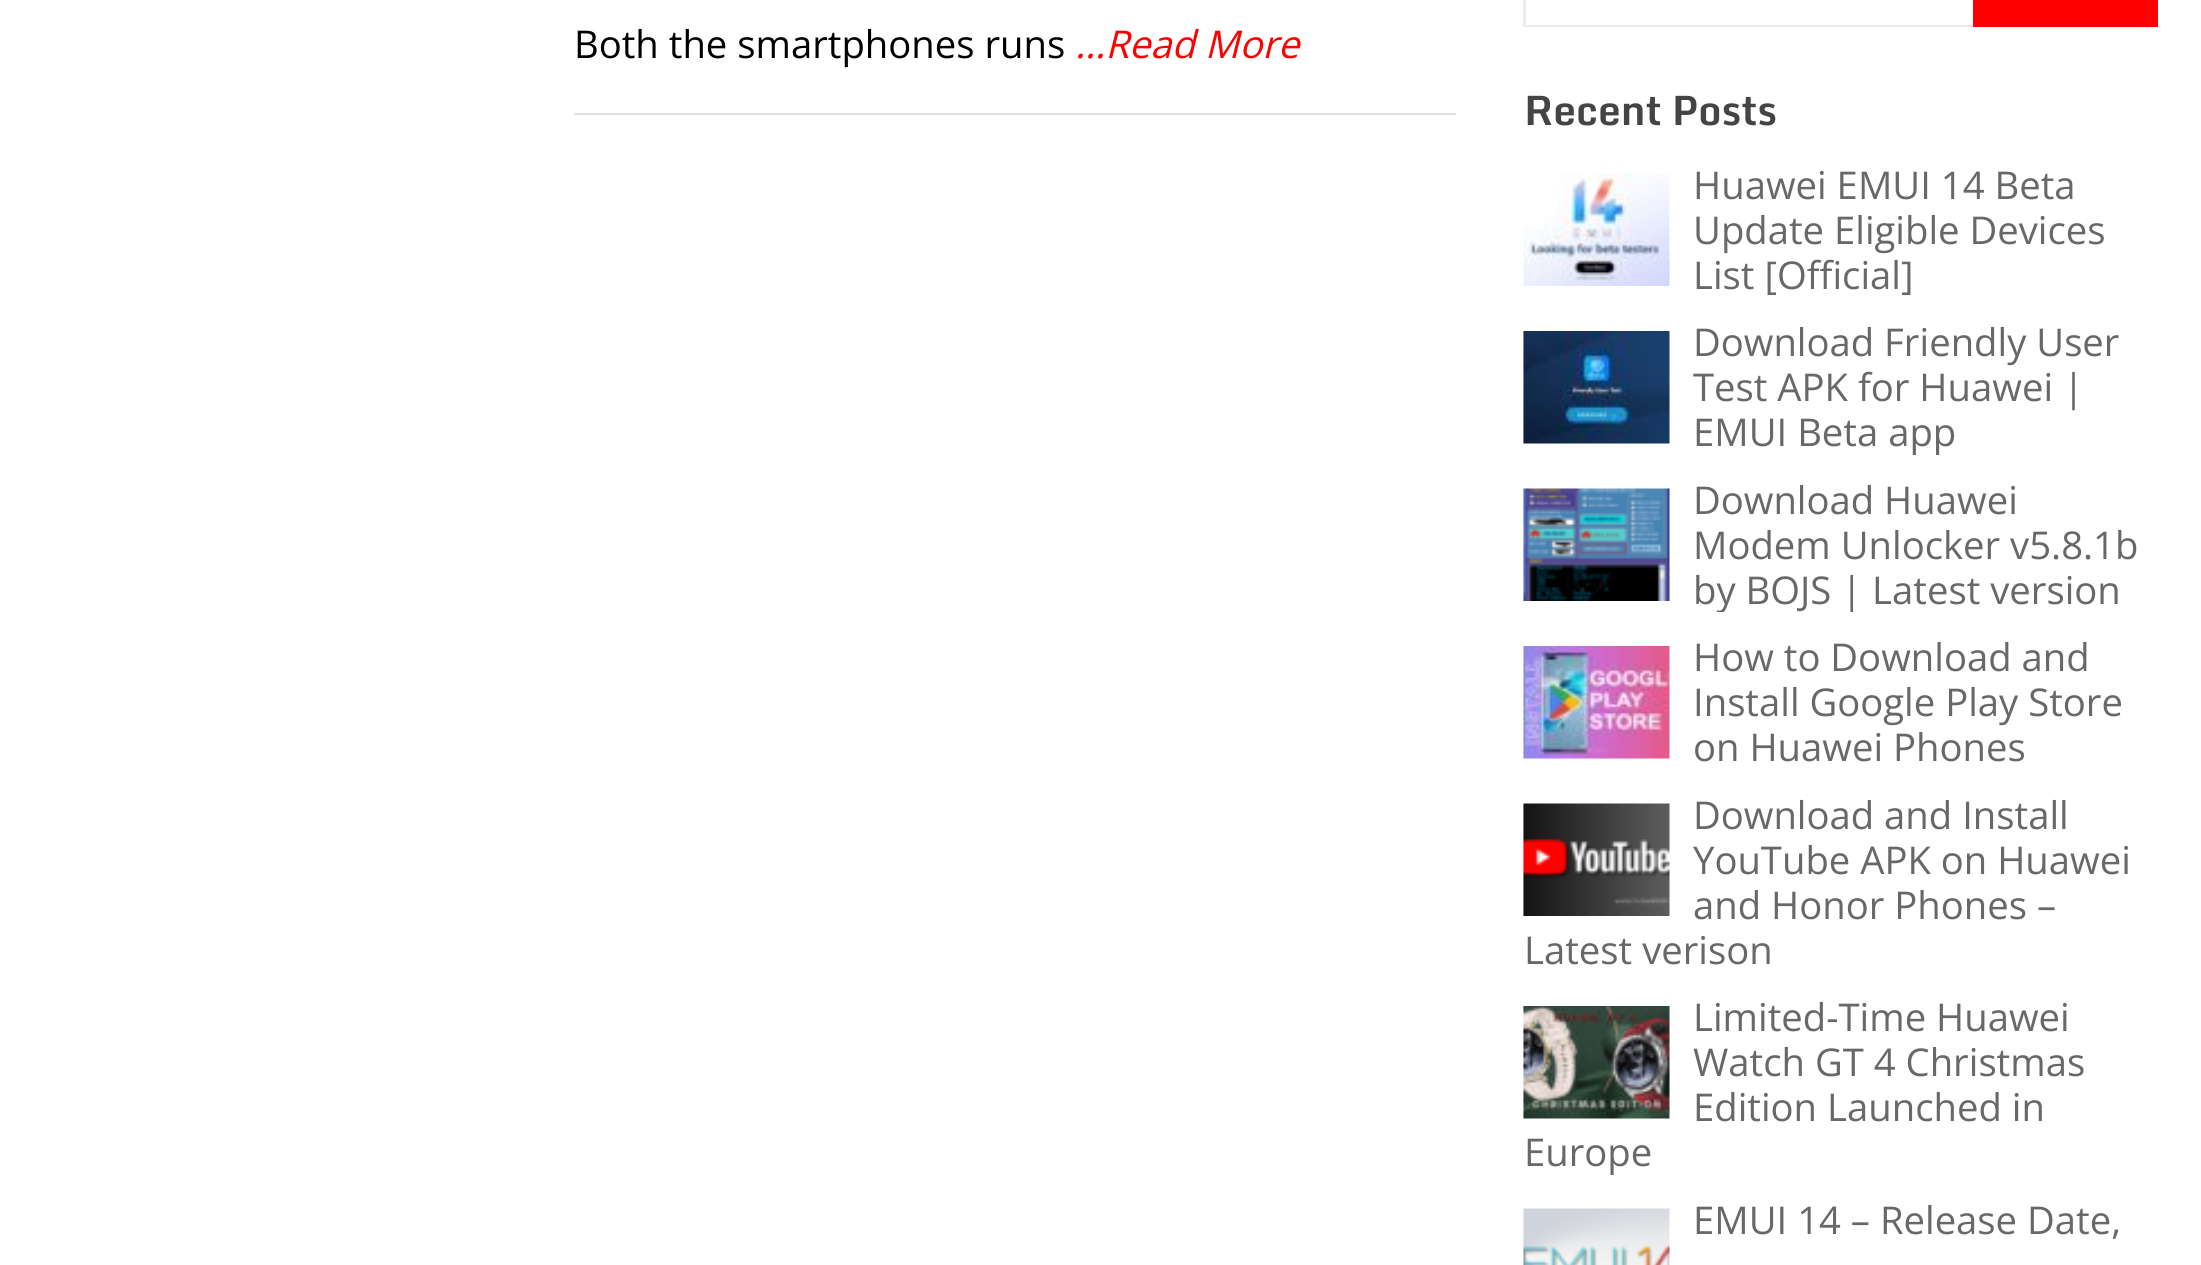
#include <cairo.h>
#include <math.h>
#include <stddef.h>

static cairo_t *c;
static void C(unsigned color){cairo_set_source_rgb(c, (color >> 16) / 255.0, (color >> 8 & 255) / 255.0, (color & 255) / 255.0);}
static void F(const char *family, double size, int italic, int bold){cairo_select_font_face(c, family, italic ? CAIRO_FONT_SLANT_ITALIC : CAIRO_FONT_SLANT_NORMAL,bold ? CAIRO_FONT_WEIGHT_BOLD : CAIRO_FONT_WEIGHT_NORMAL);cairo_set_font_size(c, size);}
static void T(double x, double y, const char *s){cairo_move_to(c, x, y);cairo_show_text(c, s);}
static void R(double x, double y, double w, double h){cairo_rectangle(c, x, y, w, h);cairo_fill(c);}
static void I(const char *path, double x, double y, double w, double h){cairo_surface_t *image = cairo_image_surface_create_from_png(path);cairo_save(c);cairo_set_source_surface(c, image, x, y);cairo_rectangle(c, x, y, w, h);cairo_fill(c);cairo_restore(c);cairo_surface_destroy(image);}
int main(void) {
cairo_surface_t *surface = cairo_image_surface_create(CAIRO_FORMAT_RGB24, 2201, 1265);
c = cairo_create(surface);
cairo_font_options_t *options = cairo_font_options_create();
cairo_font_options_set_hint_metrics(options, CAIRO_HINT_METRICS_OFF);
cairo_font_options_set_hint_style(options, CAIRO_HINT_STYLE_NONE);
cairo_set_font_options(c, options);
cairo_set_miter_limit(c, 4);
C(0xffffff);
cairo_paint(c);
F("Open Sans",38.25,0,0);
C(0x000000);
T(574,58,"Both the smartphones runs");
F("Open Sans",38.25,1,0);
C(0xff0000);
T(1075,58,"...Read More");
C(0xe0e0e0);
R(574,113,882,2);
C(0xebebeb);
cairo_new_path(c);
cairo_move_to(c,1987,27);
cairo_line_to(c,1523,27);
cairo_line_to(c,1526,25);
cairo_line_to(c,1987,25);
cairo_close_path(c);
cairo_fill(c);
cairo_set_source_rgba(c,0,0,0,0.08);
cairo_new_path(c);
cairo_move_to(c,1523,27);
cairo_line_to(c,1523,-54);
cairo_line_to(c,1526,-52);
cairo_line_to(c,1526,25);
cairo_close_path(c);
cairo_fill(c);
C(0xff0000);
R(1973,0,185,27);
F("Monda",40.5,0,1);
C(0x444444);
T(1524,125,"Recent Posts");
I("1.png",1523,173,147,113);
F("Open Sans",38.25,0,0);
C(0x696868);
T(1693,199,"Huawei EMUI 14 Beta");
T(1693,244,"Update Eligible Devices");
T(1693,289,"List [Official]");
I("2.png",1523,331,147,113);
T(1693,356,"Download Friendly User");
T(1693,401,"Test APK for Huawei |");
cairo_save(c);
cairo_rectangle(c,1523,320,635,135);
cairo_clip(c);
T(1693,446,"EMUI Beta app");
cairo_restore(c);
I("3.png",1523,488,147,113);
T(1693,514,"Download Huawei");
T(1693,559,"Modem Unlocker v5.8.1b");
cairo_save(c);
cairo_rectangle(c,1523,477,635,135);
cairo_clip(c);
T(1693,604,"by BOJS | Latest version");
cairo_restore(c);
I("4.png",1523,646,147,113);
T(1693,671,"How to Download and");
T(1693,716,"Install Google Play Store");
T(1693,761,"on Huawei Phones");
I("5.png",1523,803,147,113);
T(1693,829,"Download and Install");
T(1693,874,"YouTube APK on Huawei");
T(1693,919,"and Honor Phones –");
T(1524,964,"Latest verison");
I("6.png",1523,1006,147,113);
T(1693,1031,"Limited-Time Huawei");
T(1693,1076,"Watch GT 4 Christmas");
T(1693,1121,"Edition Launched in");
cairo_save(c);
cairo_rectangle(c,1523,995,635,180);
cairo_clip(c);
T(1524,1166,"Europe");
cairo_restore(c);
I("7.png",1523,1208,147,57);
T(1693,1234,"EMUI 14 – Release Date,");
cairo_surface_write_to_png(surface, "o.png");
cairo_font_options_destroy(options);
cairo_destroy(c);
cairo_surface_destroy(surface);
return 0;
}
